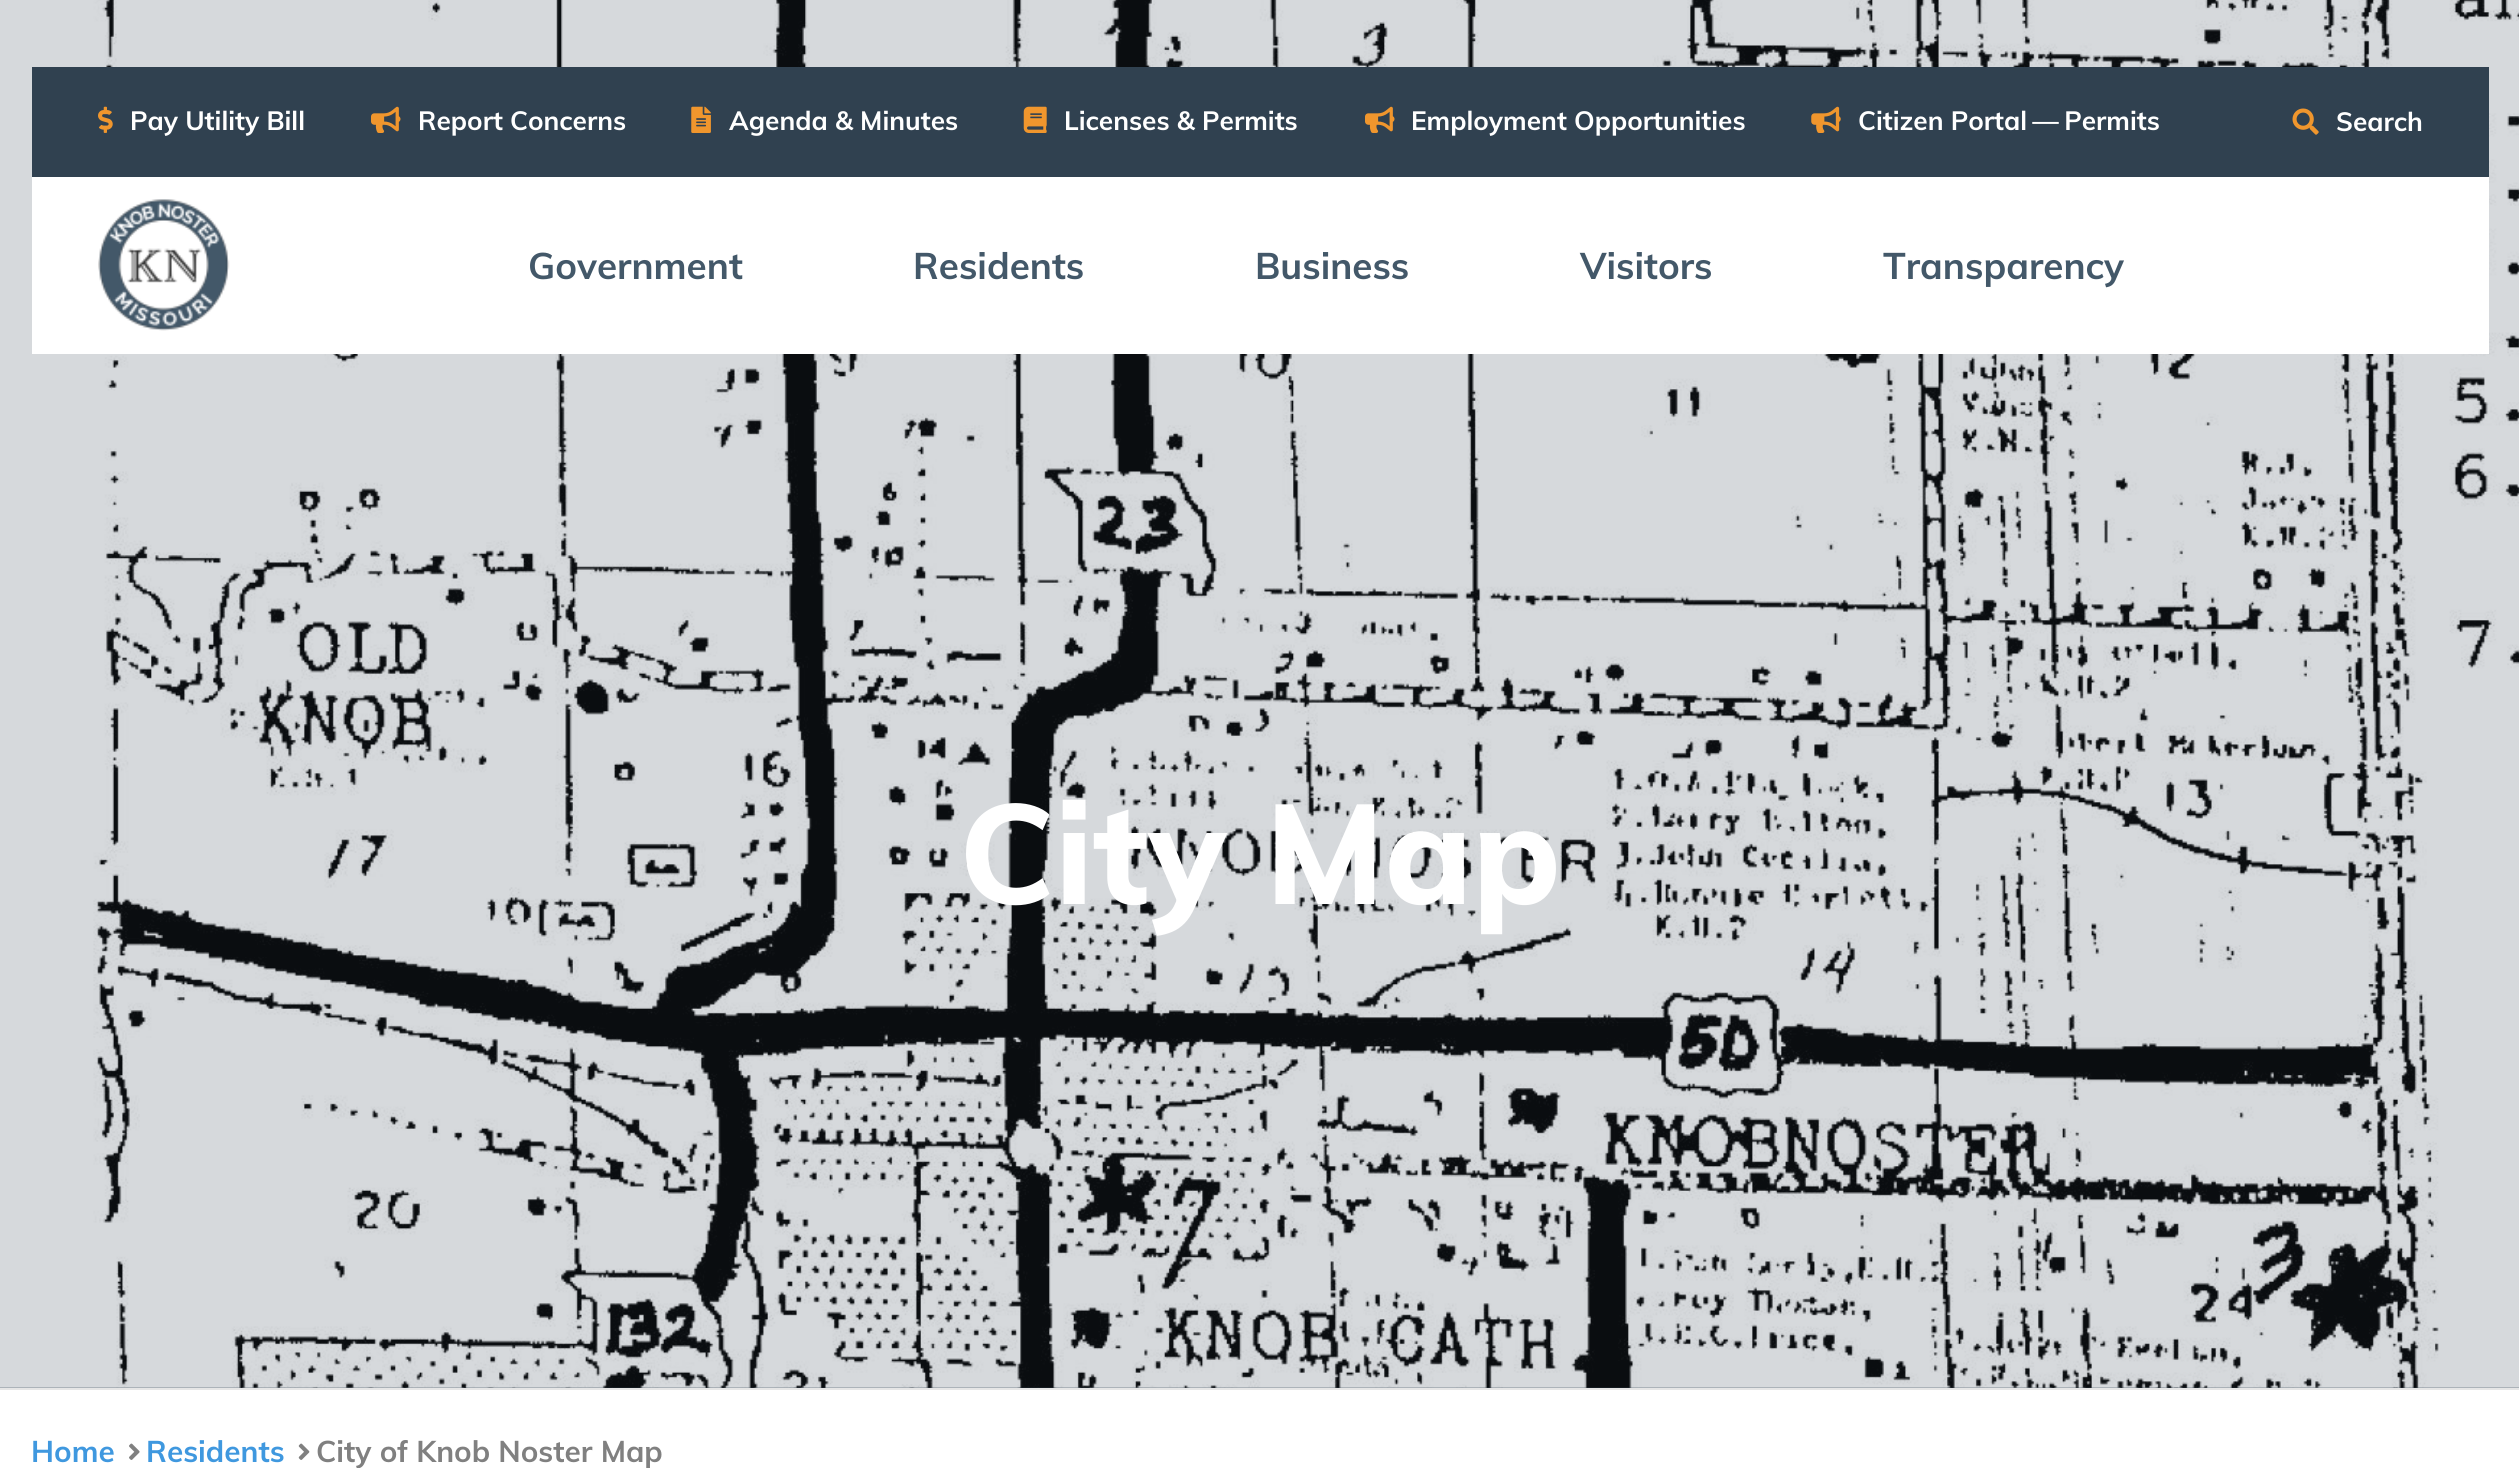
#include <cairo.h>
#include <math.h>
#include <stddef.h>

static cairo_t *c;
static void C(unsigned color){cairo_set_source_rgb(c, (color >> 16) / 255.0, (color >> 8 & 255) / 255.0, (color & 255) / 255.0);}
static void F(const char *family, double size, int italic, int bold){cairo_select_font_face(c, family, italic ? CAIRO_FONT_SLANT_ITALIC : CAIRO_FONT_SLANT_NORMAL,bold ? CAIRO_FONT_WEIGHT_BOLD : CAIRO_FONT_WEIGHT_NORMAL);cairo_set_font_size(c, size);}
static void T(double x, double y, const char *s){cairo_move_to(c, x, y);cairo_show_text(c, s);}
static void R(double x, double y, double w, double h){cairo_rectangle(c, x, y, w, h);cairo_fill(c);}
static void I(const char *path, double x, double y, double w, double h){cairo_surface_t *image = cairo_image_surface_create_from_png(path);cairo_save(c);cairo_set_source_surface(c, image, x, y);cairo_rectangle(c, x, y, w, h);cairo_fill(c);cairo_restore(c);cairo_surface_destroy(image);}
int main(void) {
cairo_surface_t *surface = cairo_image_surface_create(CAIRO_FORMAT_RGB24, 2519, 1468);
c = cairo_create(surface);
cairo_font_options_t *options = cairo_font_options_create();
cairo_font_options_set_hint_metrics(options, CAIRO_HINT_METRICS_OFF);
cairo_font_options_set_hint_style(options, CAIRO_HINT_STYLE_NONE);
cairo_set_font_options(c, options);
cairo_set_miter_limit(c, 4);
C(0xffffff);
cairo_paint(c);
C(0x304150);
R(0,0,2519,1388);
I("1.png",0,0,2519,1388);
R(32,67,2457,110);
I("2.png",98,106,15,27);
F("Muli",26.25,0,1);
C(0xffffff);
T(130,130,"Pay Utility Bill");
I("3.png",371,106,30,27);
T(418,130,"Report Concerns");
I("4.png",691,106,20,27);
T(729,130,"Agenda & Minutes");
I("5.png",1023,106,24,27);
T(1064,130,"Licenses & Permits");
I("3.png",1365,106,30,27);
T(1411,130,"Employment Opportunities");
I("6.png",1811,106,30,27);
T(1858,130,"Citizen Portal — Permits");
I("7.png",2292,108,27,27);
T(2336,131,"Search");
R(32,177,2457,177);
I("8.png",98,199,132,132);
F("Muli",36.75,0,1);
C(0x435869);
T(528,279,"Government");
T(913,279,"Residents");
T(1255,279,"Business");
T(1580,279,"Visitors");
T(1883,279,"Transparency");
F("Muli ExtraBold",140,0,0);
C(0xffffff);
T(959,904,"City Map");
C(0xe6e6e6);
R(0,1388,2519,2);
F("Muli",29.75,0,1);
C(0x3f98df);
T(31,1462,"Home");
I("9.png",129,1443,11,17);
T(146,1462,"Residents");
I("10.png",298,1443,12,17);
C(0x808080);
T(316,1462,"City of Knob Noster Map");
cairo_surface_write_to_png(surface, "o.png");
cairo_font_options_destroy(options);
cairo_destroy(c);
cairo_surface_destroy(surface);
return 0;
}
